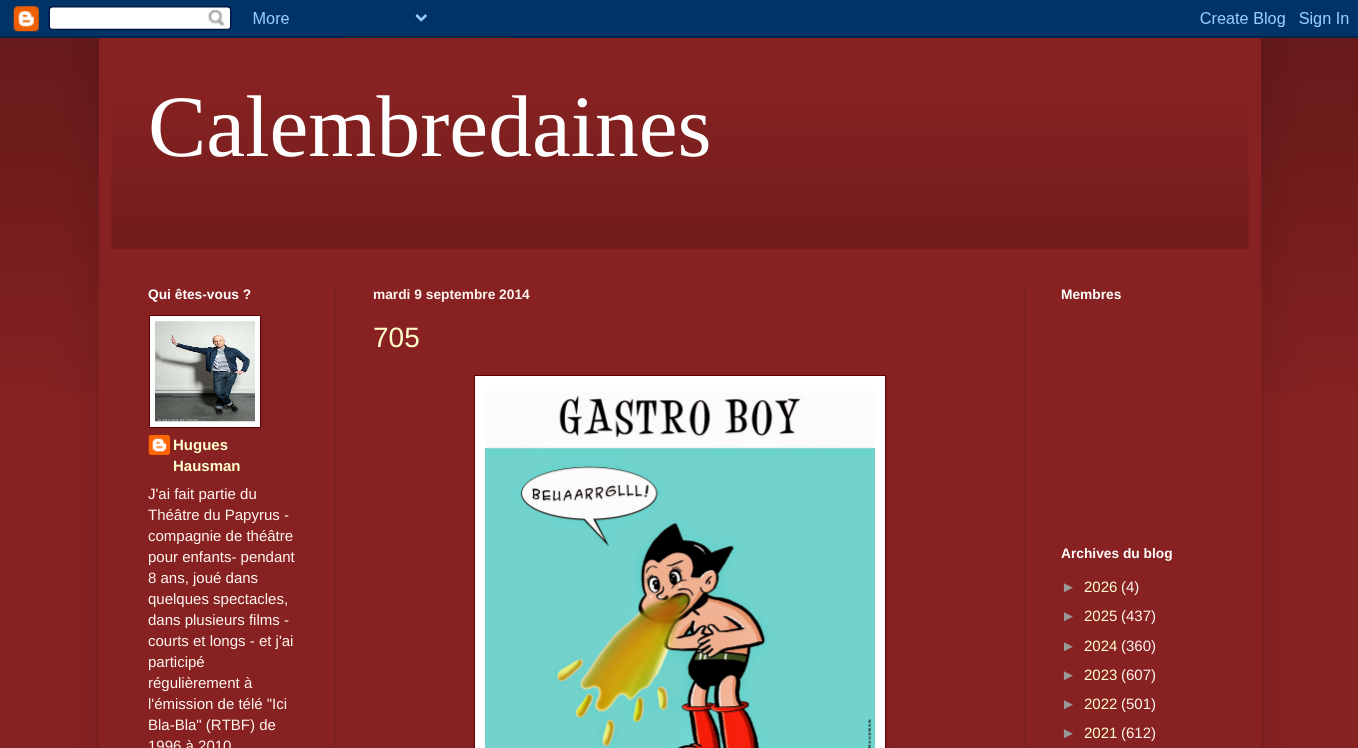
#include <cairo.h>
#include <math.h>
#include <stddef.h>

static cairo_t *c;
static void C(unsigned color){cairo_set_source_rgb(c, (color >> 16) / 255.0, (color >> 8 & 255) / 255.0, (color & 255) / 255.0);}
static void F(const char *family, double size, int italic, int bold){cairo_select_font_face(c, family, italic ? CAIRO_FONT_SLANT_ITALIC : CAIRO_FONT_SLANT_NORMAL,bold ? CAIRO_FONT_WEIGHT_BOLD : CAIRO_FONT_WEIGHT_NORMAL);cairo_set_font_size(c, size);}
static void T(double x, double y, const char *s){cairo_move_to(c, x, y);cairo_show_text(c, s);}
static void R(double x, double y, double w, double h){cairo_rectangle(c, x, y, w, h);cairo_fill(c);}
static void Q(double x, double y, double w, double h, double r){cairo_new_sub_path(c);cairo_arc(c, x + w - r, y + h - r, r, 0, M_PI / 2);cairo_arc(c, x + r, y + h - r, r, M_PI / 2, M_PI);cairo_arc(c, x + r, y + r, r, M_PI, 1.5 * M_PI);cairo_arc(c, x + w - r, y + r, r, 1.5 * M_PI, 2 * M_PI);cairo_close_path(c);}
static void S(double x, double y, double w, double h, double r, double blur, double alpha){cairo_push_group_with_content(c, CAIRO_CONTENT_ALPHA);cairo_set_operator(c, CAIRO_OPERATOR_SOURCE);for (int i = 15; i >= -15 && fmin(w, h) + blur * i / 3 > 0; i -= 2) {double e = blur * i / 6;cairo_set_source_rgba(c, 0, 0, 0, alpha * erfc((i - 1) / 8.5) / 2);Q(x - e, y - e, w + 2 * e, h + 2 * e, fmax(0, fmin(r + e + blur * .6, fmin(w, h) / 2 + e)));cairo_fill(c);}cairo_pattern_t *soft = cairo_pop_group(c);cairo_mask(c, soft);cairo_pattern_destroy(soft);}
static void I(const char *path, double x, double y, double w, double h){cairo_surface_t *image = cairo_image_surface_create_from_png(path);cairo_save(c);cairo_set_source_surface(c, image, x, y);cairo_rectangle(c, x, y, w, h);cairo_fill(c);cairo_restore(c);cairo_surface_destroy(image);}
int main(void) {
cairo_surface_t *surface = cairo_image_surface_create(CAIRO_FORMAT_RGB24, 1358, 748);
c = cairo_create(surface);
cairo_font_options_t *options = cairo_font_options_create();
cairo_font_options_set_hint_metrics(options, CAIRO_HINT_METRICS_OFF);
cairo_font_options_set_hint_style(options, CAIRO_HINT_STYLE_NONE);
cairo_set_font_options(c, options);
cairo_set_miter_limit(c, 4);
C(0x882222);
cairo_paint(c);
I("2.png",0,36,1358,357);
C(0x000000);
S(99,38,1162,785,0,25,.15);
I("1.png",0,0,1358,38);
C(0x882222);
R(99,38,1162,710);
I("3.png",111,102,1138,147);
F("Liberation Serif",87.5,0,0);
C(0xffffff);
T(148,156,"Calembredaines");
C(0x762121);
R(335,286,1,462);
R(1024,286,1,462);
F("Liberation Sans",13.75,0,1);
C(0xffffff);
T(148,299,"Qui êtes-vous ?");
I("5.png",148,435,22,20);
C(0x000000);
S(150,316,113,113,0,3,.1);
C(0xffffff);
cairo_rectangle(c,149.5,315.5,111,112);
cairo_fill_preserve(c);
C(0x660000);
cairo_set_line_width(c,1);
cairo_stroke(c);
I("4.png",155,321,100,101);
F("Liberation Sans",15,0,1);
C(0xffffcc);
T(173,450,"Hugues");
T(173,471,"Hausman");
F("Liberation Sans",15,0,0);
C(0xfff5ee);
T(148,499,"J'ai fait partie du");
T(148,520,"Théâtre du Papyrus -");
T(148,541,"compagnie de théâtre");
T(148,562,"pour enfants- pendant");
T(148,583,"8 ans, joué dans");
T(148,604,"quelques spectacles,");
T(148,625,"dans plusieurs films -");
T(148,646,"courts et longs - et j'ai");
T(148,667,"participé");
T(148,688,"régulièrement à");
T(148,709,"l'émission de télé \"Ici");
T(148,730,"Bla-Bla\" (RTBF) de");
T(148,751,"1996 à 2010");
F("Liberation Sans",13.75,0,1);
T(373,299,"mardi 9 septembre 2014");
F("Liberation Sans",28,0,0);
C(0xffffcc);
T(373,347,"705");
C(0x000000);
S(475,376,413,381,0,3,.1);
C(0xffffff);
cairo_rectangle(c,474.5,375.5,411,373);
cairo_fill_preserve(c);
C(0x660000);
cairo_stroke(c);
I("6.png",485,391,390,357);
F("Liberation Sans",13.75,0,1);
C(0xffffff);
T(1061,299,"Membres");
T(1061,558,"Archives du blog");
F("Liberation Sans",15,0,0);
C(0x999999);
T(1061,592,"►");
C(0xffffcc);
T(1084,592,"2026");
C(0xfff5ee);
T(1121,592,"(4)");
C(0x999999);
T(1061,621,"►");
C(0xffffcc);
T(1084,621,"2025");
C(0xfff5ee);
T(1121,621,"(437)");
C(0x999999);
T(1061,651,"►");
C(0xffffcc);
T(1084,651,"2024");
C(0xfff5ee);
T(1121,651,"(360)");
C(0x999999);
T(1061,680,"►");
C(0xffffcc);
T(1084,680,"2023");
C(0xfff5ee);
T(1121,680,"(607)");
C(0x999999);
T(1061,709,"►");
C(0xffffcc);
T(1084,709,"2022");
C(0xfff5ee);
T(1121,709,"(501)");
C(0x999999);
T(1061,738,"►");
C(0xffffcc);
T(1084,738,"2021");
C(0xfff5ee);
T(1121,738,"(612)");
cairo_surface_write_to_png(surface, "o.png");
cairo_font_options_destroy(options);
cairo_destroy(c);
cairo_surface_destroy(surface);
return 0;
}
